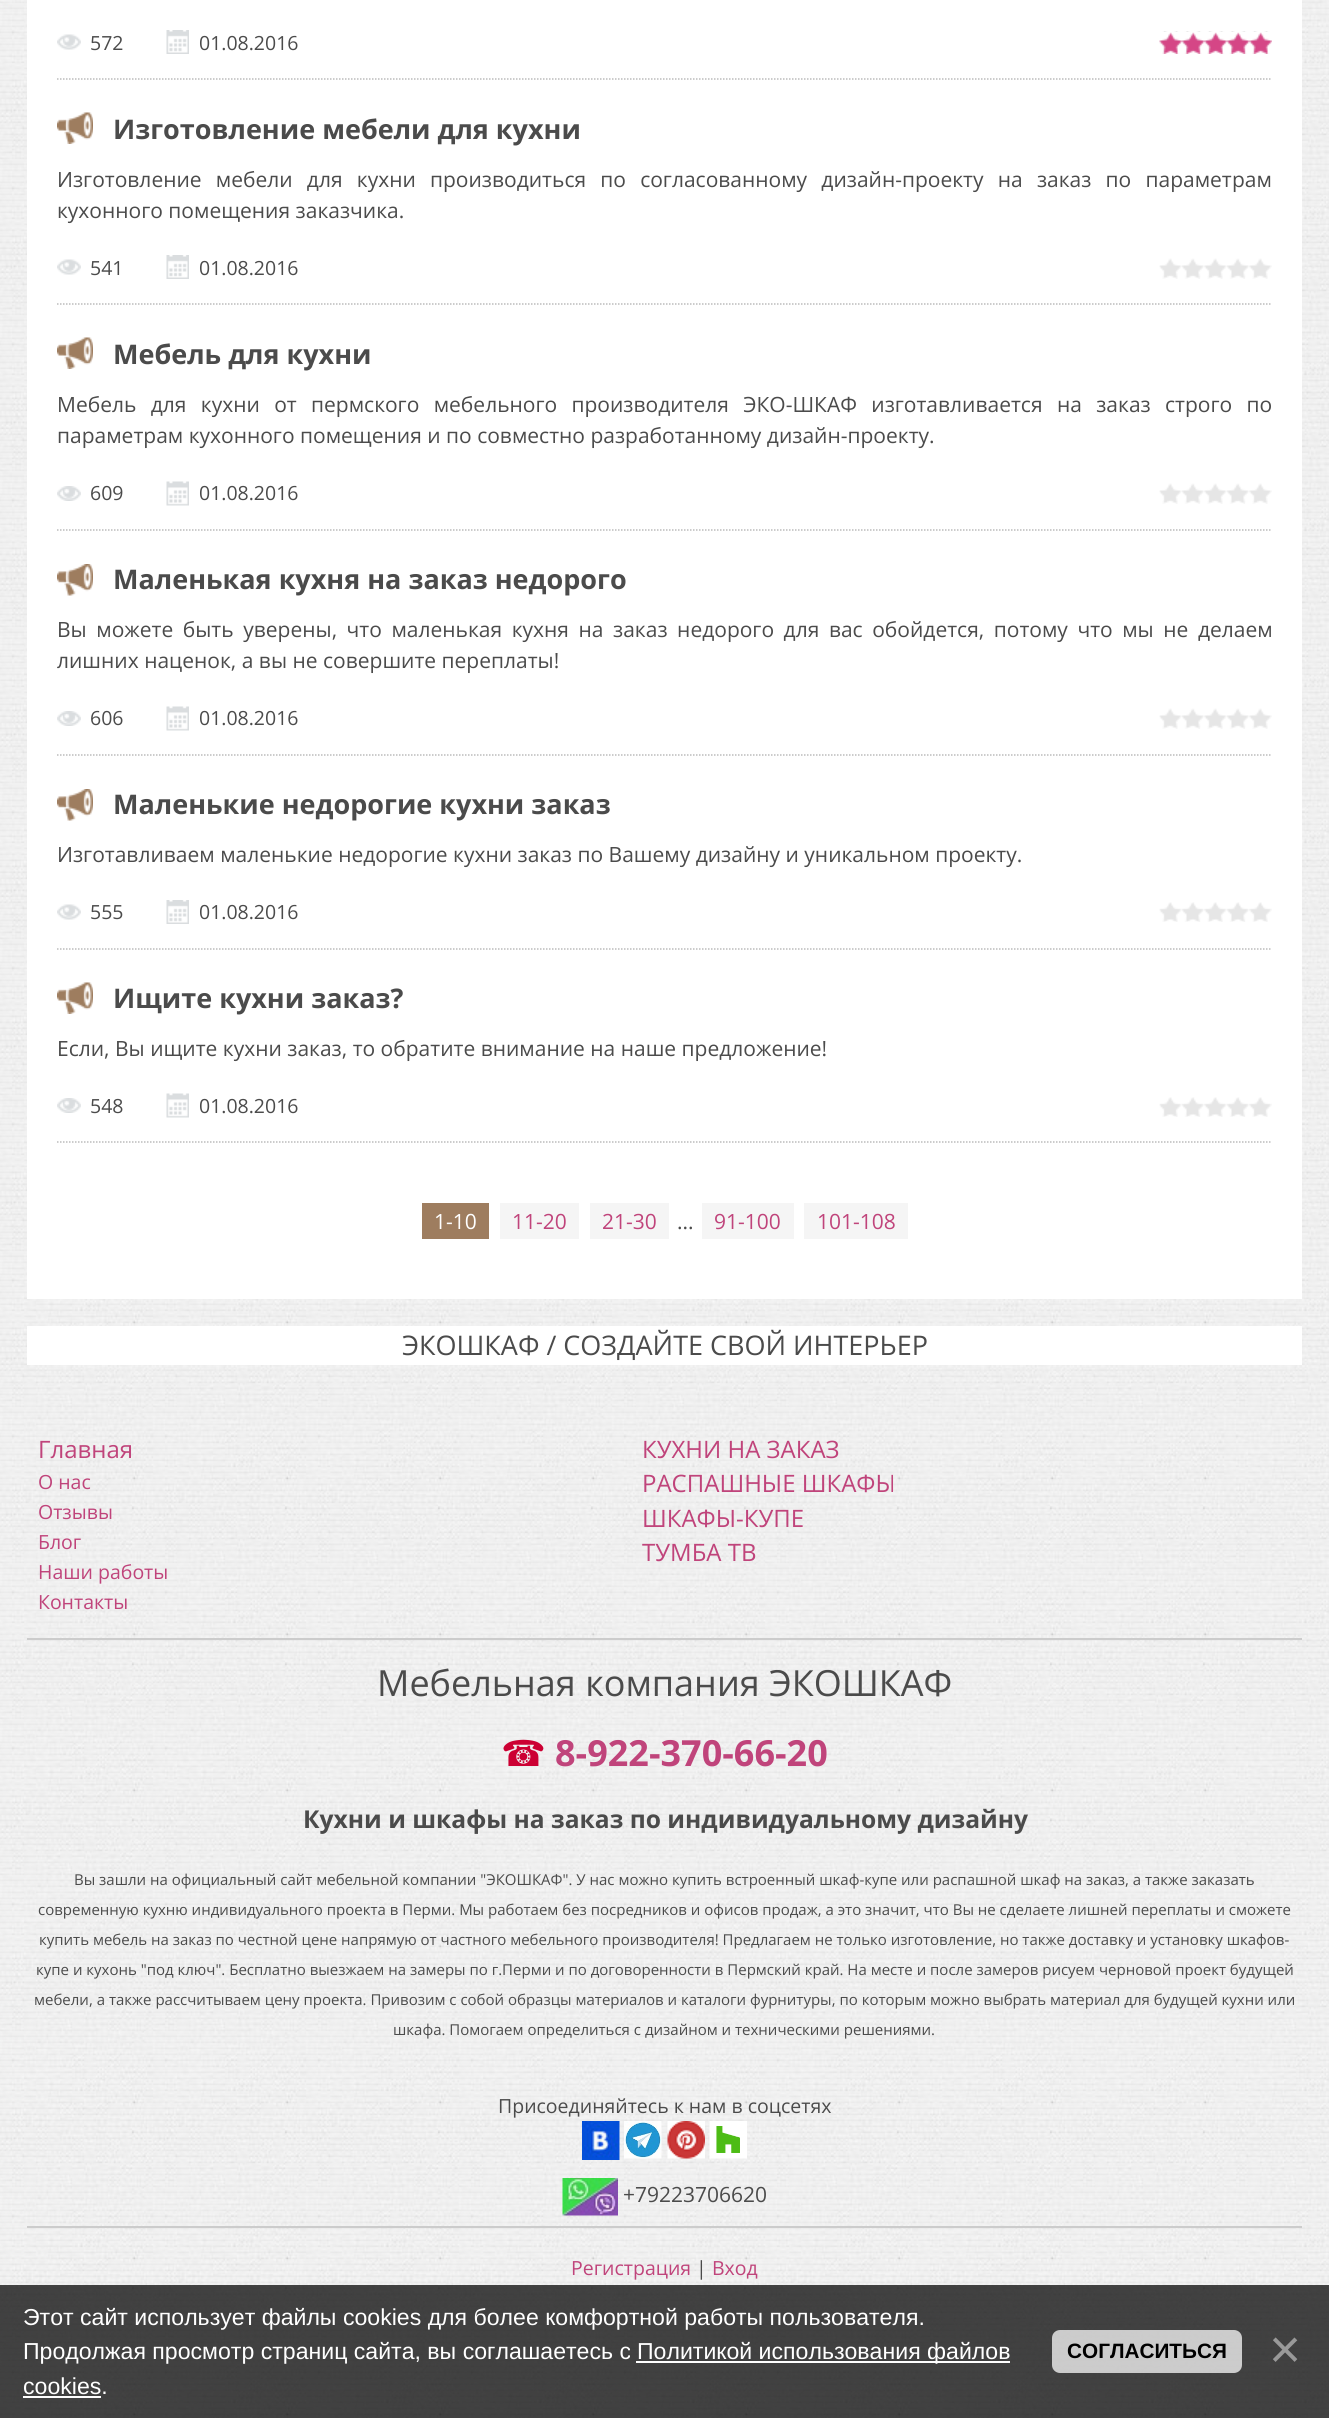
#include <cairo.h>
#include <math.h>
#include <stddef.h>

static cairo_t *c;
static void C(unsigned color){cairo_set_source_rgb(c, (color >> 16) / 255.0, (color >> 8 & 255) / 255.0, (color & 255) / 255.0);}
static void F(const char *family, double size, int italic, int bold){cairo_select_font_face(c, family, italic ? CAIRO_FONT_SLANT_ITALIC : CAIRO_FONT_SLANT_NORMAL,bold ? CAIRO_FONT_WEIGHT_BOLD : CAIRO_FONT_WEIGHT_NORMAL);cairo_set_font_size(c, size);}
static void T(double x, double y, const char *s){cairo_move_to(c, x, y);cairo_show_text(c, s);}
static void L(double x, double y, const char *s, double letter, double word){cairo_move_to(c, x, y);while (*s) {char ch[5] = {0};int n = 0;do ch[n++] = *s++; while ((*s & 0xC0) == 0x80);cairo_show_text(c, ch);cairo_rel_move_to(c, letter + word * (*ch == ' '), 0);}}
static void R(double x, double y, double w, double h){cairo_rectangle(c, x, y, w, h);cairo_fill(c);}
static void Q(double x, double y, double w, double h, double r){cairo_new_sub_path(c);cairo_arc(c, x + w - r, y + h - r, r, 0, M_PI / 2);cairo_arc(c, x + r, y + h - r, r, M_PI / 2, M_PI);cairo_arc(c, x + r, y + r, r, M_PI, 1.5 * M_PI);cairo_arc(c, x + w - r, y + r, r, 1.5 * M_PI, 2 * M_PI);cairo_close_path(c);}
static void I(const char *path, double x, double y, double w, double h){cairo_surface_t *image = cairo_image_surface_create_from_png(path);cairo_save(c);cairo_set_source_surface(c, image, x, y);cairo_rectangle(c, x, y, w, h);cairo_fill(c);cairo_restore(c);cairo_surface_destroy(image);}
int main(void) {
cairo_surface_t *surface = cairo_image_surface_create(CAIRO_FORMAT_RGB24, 1329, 2418);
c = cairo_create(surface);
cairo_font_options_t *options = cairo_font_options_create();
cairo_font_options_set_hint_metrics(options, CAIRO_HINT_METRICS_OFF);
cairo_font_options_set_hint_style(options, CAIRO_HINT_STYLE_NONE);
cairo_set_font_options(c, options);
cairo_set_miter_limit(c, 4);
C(0xffffff);
cairo_paint(c);
I("1.png",0,0,1329,2418);
C(0xffffff);
R(27,0,1275,1299);
cairo_new_path(c);
cairo_move_to(c,57,79);
cairo_line_to(c,1272,79);
C(0xbbbbbb);
cairo_set_line_width(c,1.5);
cairo_set_dash(c,(double[]){1.5,1.5},2,0);
cairo_stroke(c);
I("2.png",57,34,24,16);
F("Open Sans",19.5,0,0);
C(0x4b4b4b);
T(90,50,"572");
I("3.png",166,30,23,24);
T(199,50,"01.08.2016");
I("4.png",1159,33,113,21);
I("5.png",1159,31,113,23);
cairo_new_path(c);
cairo_move_to(c,57,304);
cairo_line_to(c,1272,304);
C(0xbbbbbb);
cairo_stroke(c);
I("6.png",57,112,36,32);
F("Open Sans",27,0,1);
C(0x4b4b4b);
T(113,139,"Изготовление мебели для кухни");
F("Open Sans",21,0,0);
L(57,187,"Изготовление мебели для кухни производиться по согласованному дизайн-проекту на заказ по парамет",0,8.75);
T(1232,187,"рам");
T(57,218,"кухонного помещения заказчика.");
I("2.png",57,259,24,16);
F("Open Sans",19.5,0,0);
T(90,275,"541");
I("3.png",166,255,23,24);
T(199,275,"01.08.2016");
I("7.png",1159,258,113,21);
cairo_new_path(c);
cairo_move_to(c,57,530);
cairo_line_to(c,1272,530);
C(0xbbbbbb);
cairo_stroke(c);
I("6.png",57,337,36,32);
F("Open Sans",27,0,1);
C(0x4b4b4b);
T(113,364,"Мебель для кухни");
F("Open Sans",21,0,0);
L(57,412,"Мебель для кухни от пермского мебельного производителя ЭКО-ШКАФ изготавливается на заказ строго по",0,8.9);
T(57,443,"параметрам кухонного помещения и по совместно разработанному дизайн-проекту.");
I("8.png",57,486,24,15);
F("Open Sans",19.5,0,0);
T(90,500,"609");
I("9.png",166,481,23,25);
T(199,500,"01.08.2016");
I("10.png",1159,483,113,21);
cairo_new_path(c);
cairo_move_to(c,57,755);
cairo_line_to(c,1272,755);
C(0xbbbbbb);
cairo_stroke(c);
I("11.png",57,564,36,32);
F("Open Sans",27,0,1);
C(0x4b4b4b);
T(113,589,"Маленькая кухня на заказ недорого");
F("Open Sans",21,0,0);
L(57,637,"Вы можете быть уверены, что маленькая кухня на заказ недорого для вас обойдется, потому что мы не делаем",0,4.1);
T(57,668,"лишних наценок, а вы не совершите переплаты!");
I("8.png",57,711,24,15);
F("Open Sans",19.5,0,0);
T(90,725,"606");
I("9.png",166,706,23,25);
T(199,725,"01.08.2016");
I("12.png",1159,708,113,21);
cairo_new_path(c);
cairo_move_to(c,57,949);
cairo_line_to(c,1272,949);
C(0xbbbbbb);
cairo_stroke(c);
I("11.png",57,789,36,32);
F("Open Sans",27,0,1);
C(0x4b4b4b);
T(113,814,"Маленькие недорогие кухни заказ");
F("Open Sans",21,0,0);
T(57,862,"Изготавливаем маленькие недорогие кухни заказ по Вашему дизайну и уникальном проекту.");
I("2.png",57,904,24,16);
F("Open Sans",19.5,0,0);
T(90,919,"555");
I("3.png",166,900,23,24);
T(199,919,"01.08.2016");
I("13.png",1159,902,113,20);
cairo_new_path(c);
cairo_move_to(c,57,1142);
cairo_line_to(c,1272,1142);
C(0xbbbbbb);
cairo_stroke(c);
I("6.png",57,982,36,32);
F("Open Sans",27,0,1);
C(0x4b4b4b);
T(113,1008,"Ищите кухни заказ?");
F("Open Sans",21,0,0);
T(57,1056,"Если, Вы ищите кухни заказ, то обратите внимание на наше предложение!");
I("8.png",57,1098,24,15);
F("Open Sans",19.5,0,0);
T(90,1113,"548");
I("9.png",166,1093,23,25);
T(199,1113,"01.08.2016");
I("14.png",1159,1097,113,20);
C(0x9e7d5f);
R(422,1203,67,36);
F("Open Sans",21,0,0);
C(0xffffff);
T(434,1229,"1-10");
C(0xf5f5f5);
R(500,1203,79,36);
C(0xc0447b);
T(512,1229,"11-20");
C(0xf5f5f5);
R(590,1203,79,36);
C(0xc0447b);
T(602,1229,"21-30");
C(0x4b4b4b);
T(677,1229,"...");
C(0xf5f5f5);
R(702,1203,92,36);
C(0xc0447b);
T(714,1229,"91-100");
C(0xf5f5f5);
R(804,1203,104,36);
C(0xc0447b);
T(817,1229,"101-108");
C(0xffffff);
R(27,1326,1275,39);
F("Open Sans",27,0,0);
C(0x4b4b4b);
T(402,1355,"ЭКОШКАФ / СОЗДАЙТЕ СВОЙ ИНТЕРЬЕР");
F("Open Sans",24,0,0);
C(0xc0447b);
T(38,1458,"Главная");
F("Open Sans",19.5,0,0);
T(38,1489,"О нас");
T(38,1519,"Отзывы");
T(38,1549,"Блог");
T(38,1579,"Наши работы");
T(38,1609,"Контакты");
F("Open Sans",24,0,0);
T(642,1458,"КУХНИ НА ЗАКАЗ");
T(642,1492,"РАСПАШНЫЕ ШКАФЫ");
T(642,1527,"ШКАФЫ-КУПЕ");
T(642,1561,"ТУМБА ТВ");
C(0xcccccc);
R(27,1638,1275,2);
F("Open Sans",36,0,0);
C(0x4b4b4b);
T(377,1696,"Мебельная компания ЭКОШКАФ");
F("DejaVu Sans",36,0,0);
C(0xcc0033);
T(501,1766,"☎");
F("Open Sans",36,0,1);
C(0xc0447b);
T(555,1766,"8-922-370-66-20");
F("Open Sans",24.6,0,1);
C(0x4b4b4b);
T(303,1828,"Кухни и шкафы на заказ по индивидуальному дизайну");
F("Open Sans",15,0,0);
T(74,1885,"Вы зашли на официальный сайт мебельной компании \"ЭКОШКАФ\". У нас можно купить встроенный шкаф-купе или распашной шкаф на заказ, а также заказать");
T(38,1915,"современную кухню индивидуального проекта в Перми. Мы работаем без посредников и офисов продаж, а это значит, что Вы не сделаете лишней переплаты и сможете");
T(39,1945,"купить мебель на заказ по честной цене напрямую от частного мебельного производителя! Предлагаем не только изготовление, но также доставку и установку шкафов-");
T(36,1975,"купе и кухонь \"под ключ\". Бесплатно выезжаем на замеры по г.Перми и по договоренности в Пермский край. На месте и после замеров рисуем черновой проект будущей");
T(34,2005,"мебели, а также рассчитываем цену проекта. Привозим с собой образцы материалов и каталоги фурнитуры, по которым можно выбрать материал для будущей кухни или");
T(393,2035,"шкафа. Помогаем определиться с дизайном и техническими решениями.");
F("Open Sans",19.5,0,0);
T(498,2113,"Присоединяйтесь к нам в соцсетях");
I("15.png",582,2121,38,39);
I("16.png",624,2121,38,38);
I("17.png",667,2121,38,38);
I("18.png",709,2121,38,38);
I("19.png",562,2178,56,38);
F("Open Sans",21,0,0);
T(623,2202,"+79223706620");
C(0xcccccc);
R(27,2226,1275,2);
F("Open Sans",19.5,0,0);
C(0xc0447b);
T(571,2275,"Регистрация");
C(0x4b4b4b);
T(696,2275,"|");
C(0xc0447b);
T(712,2275,"Вход");
cairo_set_source_rgba(c,0,0,0,0.73);
R(0,2285,1329,133);
F("Liberation Sans",23.1,0,0);
C(0xffffff);
T(23,2325,"Этот сайт использует файлы cookies для более комфортной работы пользователя.");
T(23,2359,"Продолжая просмотр страниц сайта, вы соглашаетесь с");
R(636,2361,374,2);
T(637,2359,"Политикой использования файлов");
T(23,2394,"cookies.");
R(23,2396,78,2);
cairo_set_source_rgba(c,1,1,1,0.73);
Q(1052,2330,190,43,8);
cairo_fill(c);
F("Liberation Sans",20.75,0,1);
C(0x000000);
T(1067,2358,"СОГЛАСИТЬСЯ");
F("Liberation Sans",55,0,0);
C(0x999999);
T(1269,2368,"×");
cairo_surface_write_to_png(surface, "o.png");
cairo_font_options_destroy(options);
cairo_destroy(c);
cairo_surface_destroy(surface);
return 0;
}
